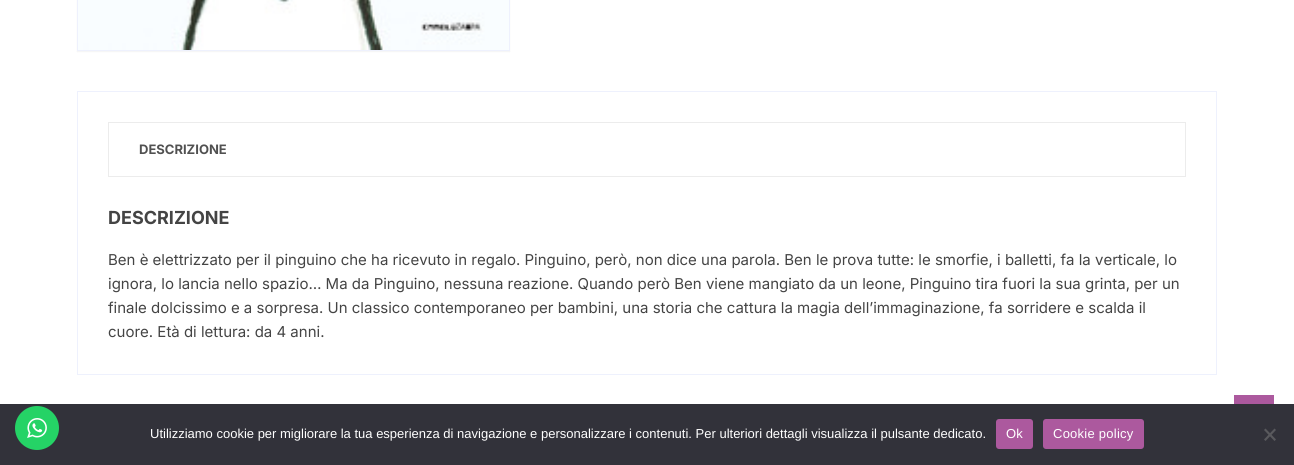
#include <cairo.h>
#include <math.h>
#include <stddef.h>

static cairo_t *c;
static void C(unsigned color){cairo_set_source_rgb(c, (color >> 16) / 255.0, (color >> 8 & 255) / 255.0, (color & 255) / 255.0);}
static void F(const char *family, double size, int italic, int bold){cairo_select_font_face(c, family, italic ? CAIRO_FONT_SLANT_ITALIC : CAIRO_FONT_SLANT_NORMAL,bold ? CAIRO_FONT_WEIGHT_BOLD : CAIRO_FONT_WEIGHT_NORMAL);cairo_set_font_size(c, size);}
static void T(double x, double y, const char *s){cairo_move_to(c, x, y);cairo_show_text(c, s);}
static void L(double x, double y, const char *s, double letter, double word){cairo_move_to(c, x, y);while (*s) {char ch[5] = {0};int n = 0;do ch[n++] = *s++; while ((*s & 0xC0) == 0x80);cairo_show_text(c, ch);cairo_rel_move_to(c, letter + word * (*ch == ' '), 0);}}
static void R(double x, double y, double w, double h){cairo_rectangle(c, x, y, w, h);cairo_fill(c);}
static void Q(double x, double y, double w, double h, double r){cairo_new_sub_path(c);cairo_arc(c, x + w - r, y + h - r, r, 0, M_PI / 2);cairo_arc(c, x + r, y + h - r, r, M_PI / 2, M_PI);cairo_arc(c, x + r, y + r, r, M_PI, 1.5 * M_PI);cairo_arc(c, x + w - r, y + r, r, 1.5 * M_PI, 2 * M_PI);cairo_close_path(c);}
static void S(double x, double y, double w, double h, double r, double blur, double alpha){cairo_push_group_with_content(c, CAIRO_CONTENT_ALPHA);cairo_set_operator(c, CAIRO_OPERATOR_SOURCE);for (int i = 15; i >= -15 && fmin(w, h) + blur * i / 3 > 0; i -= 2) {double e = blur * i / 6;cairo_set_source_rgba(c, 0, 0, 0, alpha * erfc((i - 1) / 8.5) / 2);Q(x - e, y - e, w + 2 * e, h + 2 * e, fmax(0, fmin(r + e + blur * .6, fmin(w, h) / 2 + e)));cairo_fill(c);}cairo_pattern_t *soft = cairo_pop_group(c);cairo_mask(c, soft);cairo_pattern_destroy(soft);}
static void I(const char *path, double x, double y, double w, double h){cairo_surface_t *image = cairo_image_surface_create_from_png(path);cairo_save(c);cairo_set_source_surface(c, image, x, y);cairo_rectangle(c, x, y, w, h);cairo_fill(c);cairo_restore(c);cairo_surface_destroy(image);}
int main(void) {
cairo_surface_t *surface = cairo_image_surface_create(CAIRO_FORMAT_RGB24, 1294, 465);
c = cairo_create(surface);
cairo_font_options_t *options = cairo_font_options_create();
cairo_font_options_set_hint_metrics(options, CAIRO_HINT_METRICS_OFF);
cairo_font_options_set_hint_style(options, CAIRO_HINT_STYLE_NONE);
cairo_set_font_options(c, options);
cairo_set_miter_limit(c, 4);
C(0xffffff);
cairo_paint(c);
C(0x000000);
S(77,-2,433,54,0,.5,.04);
cairo_rectangle(c,77.5,-.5,432,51);
C(0xeef1fd);
cairo_set_line_width(c,1);
cairo_stroke(c);
I("1.png",78,0,431,50);
cairo_rectangle(c,77.5,91.5,1139,283);
cairo_stroke(c);
cairo_rectangle(c,108.5,122.5,1077,54);
C(0xececec);
cairo_stroke(c);
F("Inter",13,0,1);
C(0x515151);
T(139,154,"DESCRIZIONE");
F("Inter",18,0,1);
C(0x444444);
T(108,224,"DESCRIZIONE");
F("Inter",15,0,0);
T(108,265,"Ben è elettrizzato per il pinguino che ha ricevuto in regalo. Pinguino, però, non dice una parola. Ben le prova tutte: le smorfie, i balletti, fa la verticale, lo");
T(108,289,"ignora, lo lancia nello spazio… Ma da Pinguino, nessuna reazione. Quando però Ben viene mangiato da un leone, Pinguino tira fuori la sua grinta, per un");
T(108,313,"finale dolcissimo e a sorpresa. Un classico contemporaneo per bambini, una storia che cattura la magia dell’immaginazione, fa sorridere e scalda il");
T(108,337,"cuore. Età di lettura: da 4 anni.");
C(0xac599e);
R(1234,395,40,9);
C(0x32323a);
R(0,404,1294,61);
C(0x25d366);
cairo_new_path(c);
cairo_arc(c,37,428,22,0,2 * M_PI);
cairo_fill(c);
I("2.png",27,418,20,20);
F("Liberation Sans",13,0,0);
C(0xffffff);
T(150,438,"Utilizziamo cookie per migliorare la tua esperienza di navigazione e personalizzare i contenuti. Per ulteriori dettagli visualizza il pulsante dedicato.");
C(0xac599e);
Q(996,419,37,30,3);
cairo_fill(c);
C(0xffffff);
L(1006,438,"Ok",.25,0);
C(0xac599e);
Q(1043,419,101,30,3);
cairo_fill(c);
C(0xffffff);
L(1053,438,"Cookie policy",.25,0);
C(0x59595d);
cairo_new_path(c);
cairo_move_to(c,1274.5,428.5);
cairo_line_to(c,1276,430);
cairo_line_to(c,1265.5,441);
cairo_line_to(c,1264,439.5);
cairo_close_path(c);
cairo_fill(c);
cairo_new_path(c);
cairo_move_to(c,1264,430);
cairo_line_to(c,1265.5,428.5);
cairo_line_to(c,1276,439.5);
cairo_line_to(c,1274.5,441);
cairo_close_path(c);
cairo_fill(c);
cairo_surface_write_to_png(surface, "o.png");
cairo_font_options_destroy(options);
cairo_destroy(c);
cairo_surface_destroy(surface);
return 0;
}
